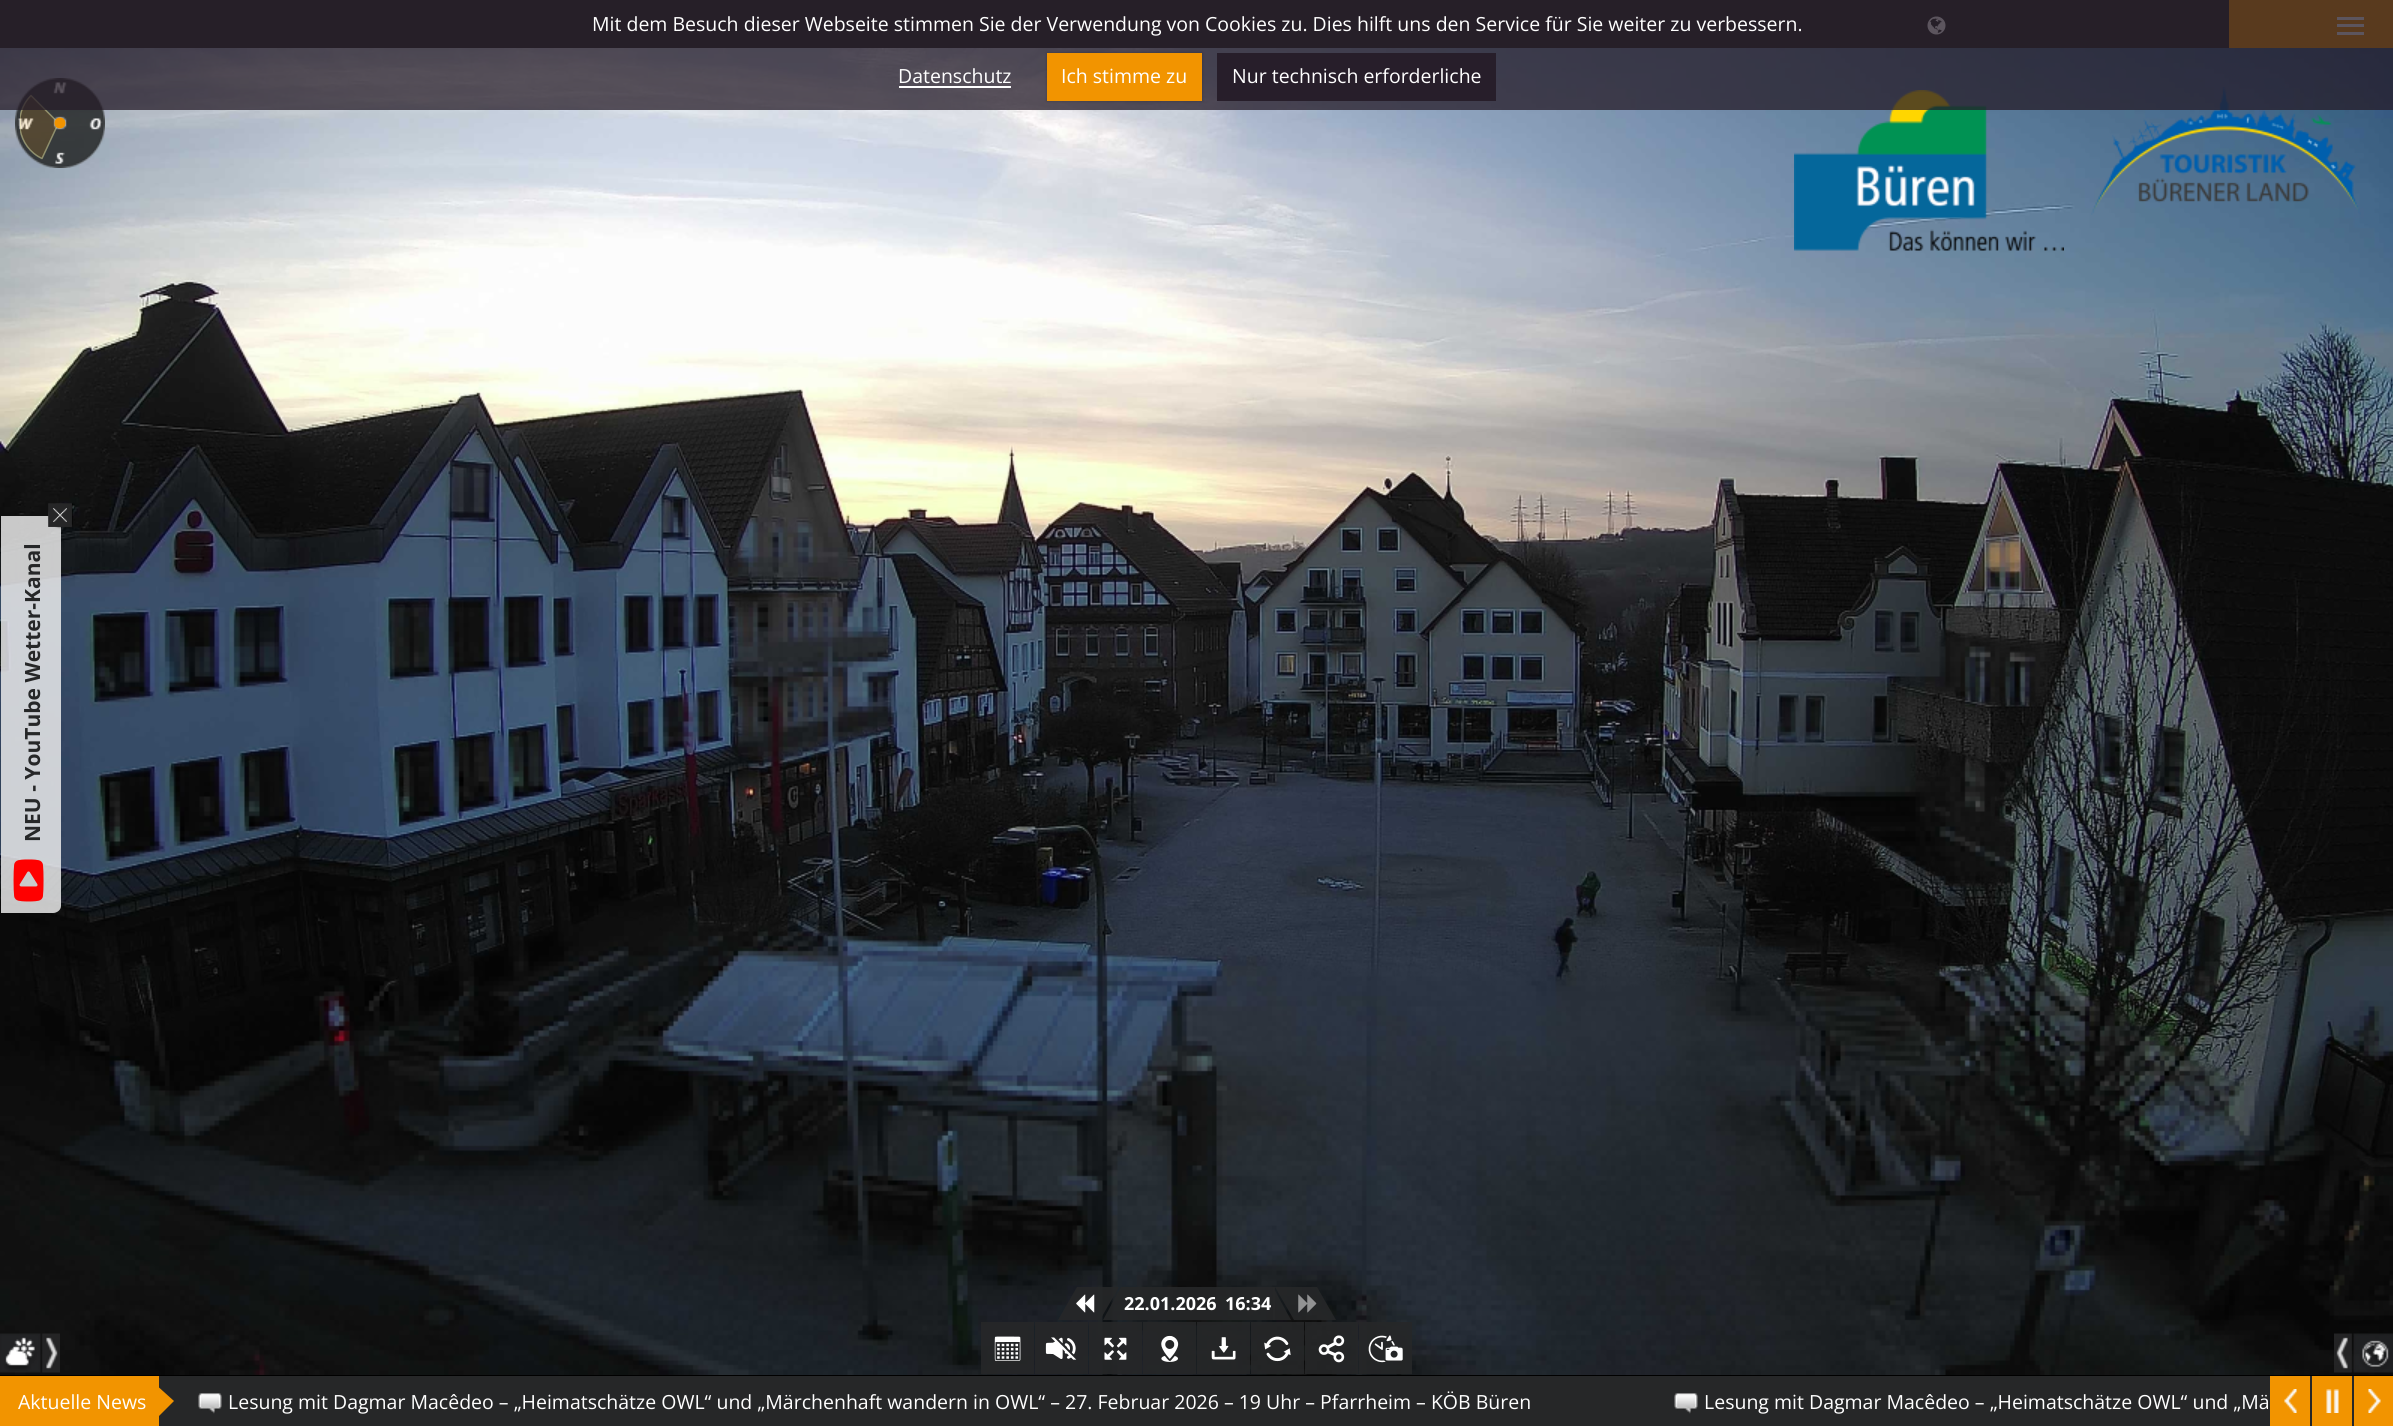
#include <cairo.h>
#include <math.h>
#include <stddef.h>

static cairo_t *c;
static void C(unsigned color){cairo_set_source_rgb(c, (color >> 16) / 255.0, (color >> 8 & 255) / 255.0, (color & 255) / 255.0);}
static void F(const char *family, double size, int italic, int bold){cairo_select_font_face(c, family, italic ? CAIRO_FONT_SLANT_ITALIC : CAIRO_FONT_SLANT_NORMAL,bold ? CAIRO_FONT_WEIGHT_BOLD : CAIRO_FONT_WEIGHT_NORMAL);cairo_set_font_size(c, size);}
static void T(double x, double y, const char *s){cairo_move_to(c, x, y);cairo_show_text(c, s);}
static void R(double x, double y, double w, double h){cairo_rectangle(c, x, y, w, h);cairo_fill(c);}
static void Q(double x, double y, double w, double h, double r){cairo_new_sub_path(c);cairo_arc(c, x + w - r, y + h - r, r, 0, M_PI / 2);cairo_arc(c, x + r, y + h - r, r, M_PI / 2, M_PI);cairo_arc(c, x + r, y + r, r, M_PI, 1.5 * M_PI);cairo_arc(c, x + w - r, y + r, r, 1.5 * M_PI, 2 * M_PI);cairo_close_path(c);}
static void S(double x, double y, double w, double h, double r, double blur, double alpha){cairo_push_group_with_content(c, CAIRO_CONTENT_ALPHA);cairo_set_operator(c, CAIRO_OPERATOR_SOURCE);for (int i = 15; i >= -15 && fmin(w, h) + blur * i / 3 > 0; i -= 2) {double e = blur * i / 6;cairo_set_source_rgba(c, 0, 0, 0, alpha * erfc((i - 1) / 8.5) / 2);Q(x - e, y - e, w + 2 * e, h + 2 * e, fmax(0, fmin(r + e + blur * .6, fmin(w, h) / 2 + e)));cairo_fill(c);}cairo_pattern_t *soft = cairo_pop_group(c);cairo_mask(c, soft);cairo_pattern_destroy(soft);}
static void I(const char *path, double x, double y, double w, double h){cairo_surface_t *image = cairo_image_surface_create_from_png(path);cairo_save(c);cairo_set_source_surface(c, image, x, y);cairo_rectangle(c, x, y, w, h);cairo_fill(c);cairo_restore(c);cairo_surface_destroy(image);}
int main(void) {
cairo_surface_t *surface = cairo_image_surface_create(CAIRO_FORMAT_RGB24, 2393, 1426);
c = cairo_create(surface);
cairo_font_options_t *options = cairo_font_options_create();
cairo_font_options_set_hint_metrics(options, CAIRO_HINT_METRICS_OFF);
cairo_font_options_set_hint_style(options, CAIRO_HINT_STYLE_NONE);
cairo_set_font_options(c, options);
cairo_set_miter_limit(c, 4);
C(0x000000);
cairo_paint(c);
C(0x262728);
R(0,0,2229,48);
I("1.png",1927,16,19,19);
C(0xf29400);
R(2229,0,164,48);
C(0xffffff);
R(2337,24,27,3);
R(2337,17,27,3);
R(2337,32,27,3);
I("2.png",0,48,2393,1327);
I("3.png",15,78,90,90);
cairo_set_source_rgba(c,0.949,0.58,0,0.15);
cairo_set_fill_rule(c,CAIRO_FILL_RULE_EVEN_ODD);
cairo_new_path(c);
cairo_move_to(c,58,123);
cairo_line_to(c,42,158);
cairo_curve_to(c,18,147,12,114,31,95);
cairo_close_path(c);
cairo_fill(c);
cairo_save(c);
cairo_set_fill_rule(c,CAIRO_FILL_RULE_WINDING);
cairo_rectangle(c,20,84,82,83);
cairo_clip(c);
cairo_new_path(c);
cairo_move_to(c,58.5,123);
cairo_line_to(c,42,158.5);
cairo_curve_to(c,17.5,147,12,114.5,31,95.5);
cairo_close_path(c);
cairo_set_source_rgba(c,0.878,0.878,0.627,0.5);
cairo_set_line_width(c,1.5);
cairo_set_line_cap(c,CAIRO_LINE_CAP_ROUND);
cairo_set_line_join(c,CAIRO_LINE_JOIN_ROUND);
cairo_stroke(c);
cairo_restore(c);
I("4.png",1794,90,270,161);
I("5.png",2091,87,270,128);
cairo_set_source_rgba(c,0.149,0.114,0.157,0.75);
R(0,0,2393,110);
F("Open Sans",19.5,0,0);
C(0xffffff);
T(592,31,"Mit dem Besuch dieser Webseite stimmen Sie der Verwendung von Cookies zu. Dies hilft uns den Service für Sie weiter zu verbessern.");
T(898,83,"Datenschutz");
R(899,86,112,2);
C(0x000000);
S(1047,53,155,48,0,1.5,.25);
C(0xf29400);
R(1047,53,155,48);
C(0xffffff);
T(1061,83,"Ich stimme zu");
cairo_set_source_rgba(c,0.149,0.114,0.157,0.95);
R(1217,53,279,48);
C(0xffffff);
T(1232,83,"Nur technisch erforderliche");
C(0xf29400);
cairo_new_path(c);
cairo_arc(c,60,123,5.5,0,2 * M_PI);
cairo_fill(c);
cairo_set_source_rgba(c,0.933,0.933,0.933,0.83);
cairo_set_fill_rule(c,CAIRO_FILL_RULE_WINDING);
cairo_new_path(c);
cairo_move_to(c,1,913);
cairo_line_to(c,1,516);
cairo_line_to(c,53,516);
cairo_curve_to(c,57,516,61,519,61,523);
cairo_line_to(c,61,906);
cairo_curve_to(c,61,910,57,913,53,913);
cairo_close_path(c);
cairo_fill(c);
I("6.png",47,503,26,26);
F("Open Sans",21,0,1);
C(0x262728);
cairo_save(c);
cairo_translate(c,40,842);
cairo_rotate(c,-90 * M_PI / 180);
T(0,0,"NEU - YouTube Wetter-Kanal");
cairo_restore(c);
I("7.png",13,859,31,43);
cairo_set_source_rgba(c,0.149,0.153,0.157,0.9);
cairo_new_path(c);
cairo_move_to(c,1077,1287);
cairo_line_to(c,1119,1287);
cairo_line_to(c,1100,1320);
cairo_line_to(c,1058,1320);
cairo_close_path(c);
cairo_fill(c);
I("8.png",1076,1294,19,19);
cairo_new_path(c);
cairo_move_to(c,1121,1287);
cairo_line_to(c,1121,1320);
cairo_line_to(c,1103,1320);
cairo_close_path(c);
cairo_fill(c);
R(1121,1287,154,33);
F("Open Sans",18,0,1);
C(0xffffff);
T(1124,1310,"22.01.2026");
T(1225,1310,"16:34");
cairo_set_source_rgba(c,0.149,0.153,0.157,0.9);
cairo_new_path(c);
cairo_move_to(c,1275,1287);
cairo_line_to(c,1317,1287);
cairo_line_to(c,1336,1320);
cairo_line_to(c,1294,1320);
cairo_close_path(c);
cairo_fill(c);
cairo_new_path(c);
cairo_move_to(c,1273,1320);
cairo_line_to(c,1273,1287);
cairo_line_to(c,1291,1320);
cairo_close_path(c);
cairo_fill(c);
I("9.png",1298,1294,19,19);
I("10.png",0,1333,60,40);
R(981,1322,53,52);
I("11.png",994,1336,27,25);
R(1035,1322,53,52);
I("12.png",1045,1337,32,23);
R(1089,1322,53,52);
I("13.png",1104,1337,23,23);
R(1143,1322,53,52);
I("14.png",1161,1335,18,27);
R(1197,1322,53,52);
I("15.png",1211,1337,25,23);
R(1251,1322,53,52);
I("16.png",1264,1336,27,26);
R(1305,1322,53,52);
I("17.png",1318,1335,27,28);
R(1359,1322,53,52);
I("18.png",1368,1335,35,28);
I("19.png",2334,1333,59,40);
C(0x262728);
R(159,1376,2195,50);
C(0xf29400);
R(0,1376,159,50);
F("Open Sans",19.5,0,0);
C(0xffffff);
T(18,1409,"Aktuelle News");
C(0xf29400);
cairo_new_path(c);
cairo_move_to(c,159,1416);
cairo_line_to(c,159,1387.5);
cairo_line_to(c,174,1401);
cairo_close_path(c);
cairo_fill(c);
I("20.png",198,1393,24,21);
C(0xffffff);
T(228,1409,"Lesung mit Dagmar Macêdeo – „Heimatschätze OWL“ und „Märchenhaft wandern in OWL“ – 27. Februar 2026 – 19 Uhr – Pfarrheim – KÖB Büren");
I("20.png",1674,1393,24,21);
T(1704,1409,"Lesung mit Dagmar Macêdeo – „Heimatschätze OWL“ und „Mä");
C(0xf29400);
R(2270,1376,40,50);
I("21.png",2284,1389,13,24);
R(2312,1376,40,50);
I("22.png",2326,1389,13,24);
R(2354,1376,39,50);
I("23.png",2368,1389,13,24);
cairo_surface_write_to_png(surface, "o.png");
cairo_font_options_destroy(options);
cairo_destroy(c);
cairo_surface_destroy(surface);
return 0;
}
